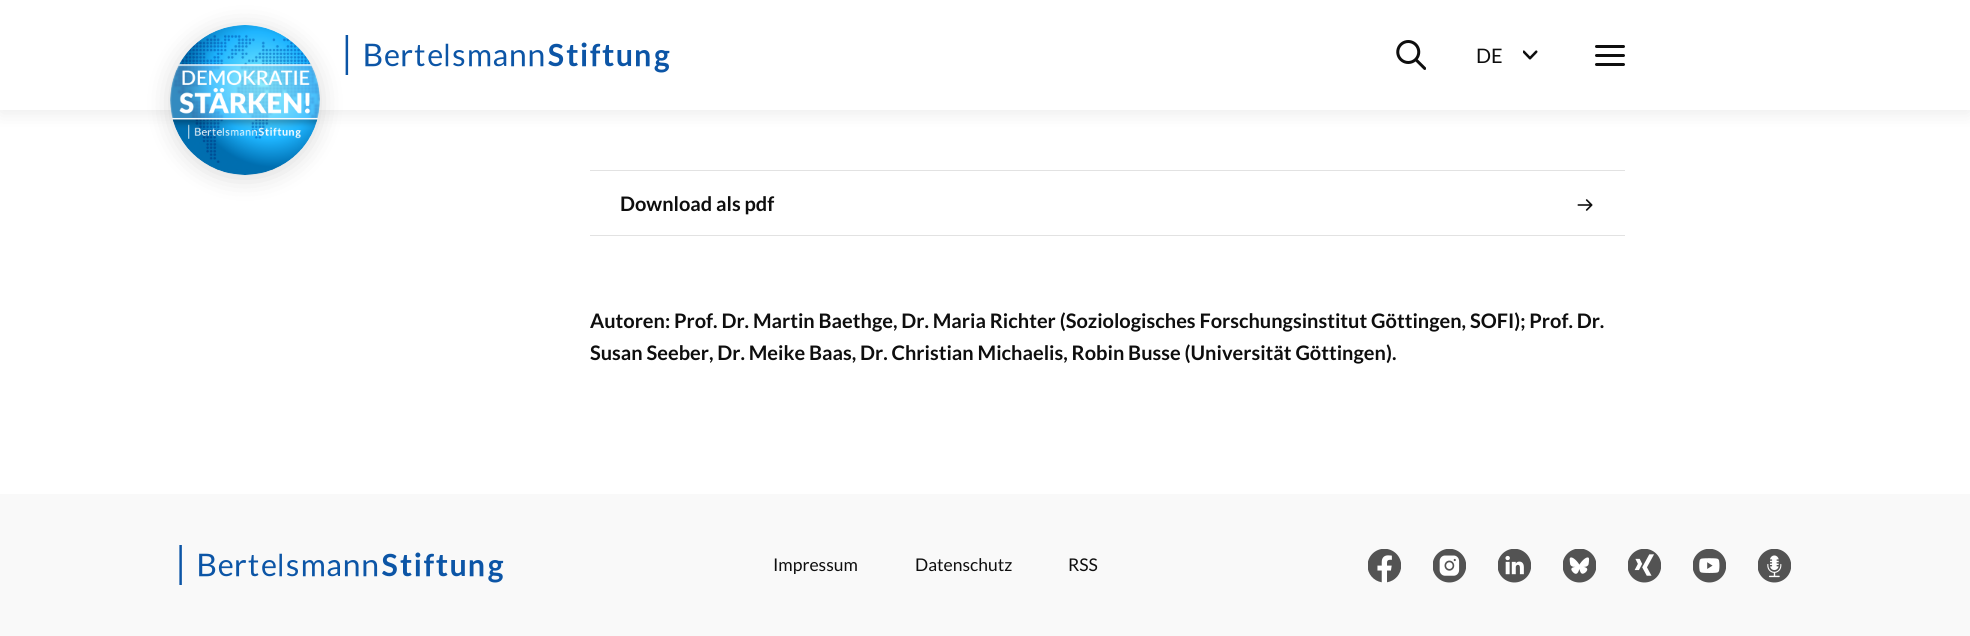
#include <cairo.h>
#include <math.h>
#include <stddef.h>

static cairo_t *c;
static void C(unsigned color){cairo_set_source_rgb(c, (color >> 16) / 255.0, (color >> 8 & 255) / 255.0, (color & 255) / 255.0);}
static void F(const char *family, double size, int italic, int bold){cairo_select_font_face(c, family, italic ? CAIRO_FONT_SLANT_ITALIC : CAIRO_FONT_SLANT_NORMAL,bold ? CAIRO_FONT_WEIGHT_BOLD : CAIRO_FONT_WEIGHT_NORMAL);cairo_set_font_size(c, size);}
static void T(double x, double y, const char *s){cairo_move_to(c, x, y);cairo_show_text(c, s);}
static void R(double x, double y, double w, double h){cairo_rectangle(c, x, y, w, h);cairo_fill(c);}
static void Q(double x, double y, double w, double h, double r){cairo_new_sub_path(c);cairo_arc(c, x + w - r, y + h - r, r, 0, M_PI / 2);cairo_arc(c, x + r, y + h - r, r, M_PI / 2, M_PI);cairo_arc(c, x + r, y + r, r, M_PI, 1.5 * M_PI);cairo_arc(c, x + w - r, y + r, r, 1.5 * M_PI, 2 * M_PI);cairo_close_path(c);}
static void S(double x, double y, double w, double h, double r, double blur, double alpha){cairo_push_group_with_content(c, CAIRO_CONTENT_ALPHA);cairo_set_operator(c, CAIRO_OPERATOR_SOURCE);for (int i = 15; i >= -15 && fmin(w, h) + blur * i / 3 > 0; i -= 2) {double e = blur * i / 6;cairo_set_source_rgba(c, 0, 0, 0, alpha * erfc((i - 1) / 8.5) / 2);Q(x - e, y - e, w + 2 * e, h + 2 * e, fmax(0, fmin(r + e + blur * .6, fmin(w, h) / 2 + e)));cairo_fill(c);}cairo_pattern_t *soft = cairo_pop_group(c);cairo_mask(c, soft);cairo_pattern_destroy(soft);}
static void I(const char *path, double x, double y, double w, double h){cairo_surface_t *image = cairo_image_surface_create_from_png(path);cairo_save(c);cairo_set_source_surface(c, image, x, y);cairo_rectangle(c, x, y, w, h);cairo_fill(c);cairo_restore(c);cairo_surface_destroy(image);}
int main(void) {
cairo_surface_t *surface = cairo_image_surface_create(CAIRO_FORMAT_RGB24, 1970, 636);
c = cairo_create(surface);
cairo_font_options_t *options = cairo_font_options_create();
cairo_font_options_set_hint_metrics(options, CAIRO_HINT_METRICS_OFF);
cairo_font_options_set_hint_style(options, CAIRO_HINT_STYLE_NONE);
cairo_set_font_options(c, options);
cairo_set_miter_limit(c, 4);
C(0xffffff);
cairo_paint(c);
C(0x000000);
S(0,3,1970,110,0,9.5,.08);
C(0xffffff);
R(0,0,1970,110);
I("2.png",345,35,325,40);
C(0x000000);
S(170,28,150,150,75,12.5,.15);
I("1.png",170,25,150,150);
I("3.png",1396,40,30,30);
F("Lato",20,0,0);
C(0x0e0e0e);
T(1476,63,"DE");
I("4.png",1523,50,15,10);
Q(1595,45,30,3,1.5);
cairo_fill(c);
Q(1595,54,30,3,1.5);
cairo_fill(c);
Q(1595,63,30,3,1.5);
cairo_fill(c);
C(0xe2e2e2);
R(590,170,1035,1);
R(590,235,1035,1);
F("Lato",20,0,1);
C(0x0e0e0e);
T(620,211,"Download als pdf");
I("5.png",1577,199,16,12);
T(590,328,"Autoren: Prof. Dr. Martin Baethge, Dr. Maria Richter (Soziologisches Forschungsinstitut Göttingen, SOFI); Prof. Dr.");
T(590,360,"Susan Seeber, Dr. Meike Baas, Dr. Christian Michaelis, Robin Busse (Universität Göttingen).");
C(0xf9f9f9);
R(0,494,1970,142);
I("6.png",179,545,325,40);
F("Lato",17.5,0,0);
C(0x0e0e0e);
T(773,571,"Impressum");
T(915,571,"Datenschutz");
T(1068,571,"RSS");
I("7.png",1368,549,33,34);
I("8.png",1433,549,33,34);
I("9.png",1498,549,33,34);
I("10.png",1563,549,33,34);
I("11.png",1628,549,33,34);
I("12.png",1693,549,33,34);
I("13.png",1758,549,33,34);
cairo_surface_write_to_png(surface, "o.png");
cairo_font_options_destroy(options);
cairo_destroy(c);
cairo_surface_destroy(surface);
return 0;
}
